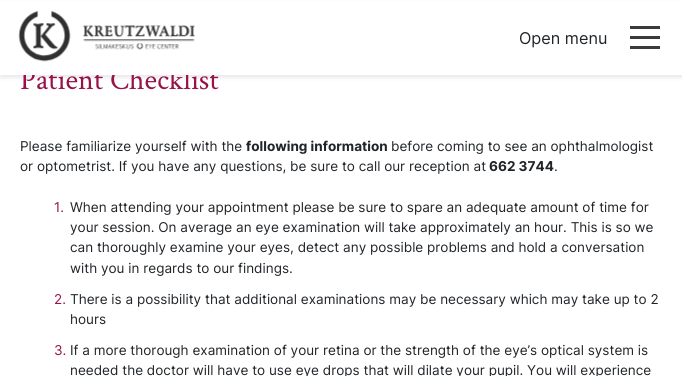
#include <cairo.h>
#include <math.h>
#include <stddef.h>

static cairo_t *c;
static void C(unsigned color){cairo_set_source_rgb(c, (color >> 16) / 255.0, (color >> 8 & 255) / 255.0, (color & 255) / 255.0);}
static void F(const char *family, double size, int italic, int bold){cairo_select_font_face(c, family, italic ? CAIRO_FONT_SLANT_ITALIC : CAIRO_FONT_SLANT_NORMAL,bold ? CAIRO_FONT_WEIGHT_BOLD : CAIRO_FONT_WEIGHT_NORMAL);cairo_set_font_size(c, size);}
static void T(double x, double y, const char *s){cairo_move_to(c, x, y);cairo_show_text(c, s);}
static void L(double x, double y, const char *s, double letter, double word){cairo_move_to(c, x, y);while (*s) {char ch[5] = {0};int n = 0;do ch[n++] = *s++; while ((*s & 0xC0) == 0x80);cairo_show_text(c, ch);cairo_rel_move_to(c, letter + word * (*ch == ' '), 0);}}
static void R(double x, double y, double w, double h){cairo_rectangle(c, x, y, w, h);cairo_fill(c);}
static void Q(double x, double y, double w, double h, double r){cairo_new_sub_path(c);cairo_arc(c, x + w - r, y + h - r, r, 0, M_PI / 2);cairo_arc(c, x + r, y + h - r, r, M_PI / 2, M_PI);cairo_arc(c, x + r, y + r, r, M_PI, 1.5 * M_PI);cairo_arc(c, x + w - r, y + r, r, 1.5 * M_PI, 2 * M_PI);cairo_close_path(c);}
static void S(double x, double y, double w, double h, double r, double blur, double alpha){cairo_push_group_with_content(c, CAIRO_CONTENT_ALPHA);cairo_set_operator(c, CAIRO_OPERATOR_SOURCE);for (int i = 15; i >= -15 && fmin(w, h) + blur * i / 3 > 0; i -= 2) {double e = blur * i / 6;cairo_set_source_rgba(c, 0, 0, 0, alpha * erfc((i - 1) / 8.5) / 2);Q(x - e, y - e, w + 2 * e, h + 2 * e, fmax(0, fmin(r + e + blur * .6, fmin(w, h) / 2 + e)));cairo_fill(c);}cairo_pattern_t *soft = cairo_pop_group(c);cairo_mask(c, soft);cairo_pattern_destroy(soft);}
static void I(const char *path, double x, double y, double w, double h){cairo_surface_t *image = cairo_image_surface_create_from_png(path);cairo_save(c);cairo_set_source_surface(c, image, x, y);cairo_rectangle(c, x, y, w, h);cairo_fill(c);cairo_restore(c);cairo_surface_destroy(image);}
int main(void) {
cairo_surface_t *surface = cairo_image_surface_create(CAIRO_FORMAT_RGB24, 682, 376);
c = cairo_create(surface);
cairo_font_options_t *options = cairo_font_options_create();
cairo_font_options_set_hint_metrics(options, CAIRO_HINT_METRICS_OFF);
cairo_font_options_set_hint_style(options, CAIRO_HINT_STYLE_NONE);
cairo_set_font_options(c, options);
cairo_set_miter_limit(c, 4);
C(0xffffff);
cairo_paint(c);
C(0x3b3b3b);
S(0,3,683,75,0,1.5,.1);
F("Crimson Text",29.75,0,0);
C(0x971249);
L(20,89,"Patient Checklist",.1,0);
C(0xffffff);
R(0,1,682,74);
I("1.png",18,11,177,51);
F("Inter",16.25,0,0);
C(0x212529);
T(519,44,"Open menu");
C(0x3b3b3b);
R(630,26,30,3);
R(630,36,30,3);
R(630,46,30,3);
F("Inter",13.55,0,0);
C(0x212529);
T(20,151,"Please familiarize yourself with the");
F("Inter",13.55,0,1);
T(246,151,"following information");
F("Inter",13.55,0,0);
T(391,151,"before coming to see an ophthalmologist");
T(20,171,"or optometrist. If you have any questions, be sure to call our reception at");
F("Inter",13.55,0,1);
T(489,171,"662 3744");
F("Inter",13.55,0,0);
T(554,171,".");
C(0x971249);
T(54,212,"1.");
C(0x212529);
T(70,212,"When attending your appointment please be sure to spare an adequate amount of time for");
T(70,232,"your session. On average an eye examination will take approximately an hour. This is so we");
T(70,252,"can thoroughly examine your eyes, detect any possible problems and hold a conversation");
T(70,273,"with you in regards to our findings.");
C(0x971249);
T(54,304,"2.");
C(0x212529);
T(70,304,"There is a possibility that additional examinations may be necessary which may take up to 2");
T(70,324,"hours");
C(0x971249);
T(54,355,"3.");
C(0x212529);
T(70,355,"If a more thorough examination of your retina or the strength of the eye’s optical system is");
T(70,375,"needed the doctor will have to use eye drops that will dilate your pupil. You will experience");
cairo_surface_write_to_png(surface, "o.png");
cairo_font_options_destroy(options);
cairo_destroy(c);
cairo_surface_destroy(surface);
return 0;
}
